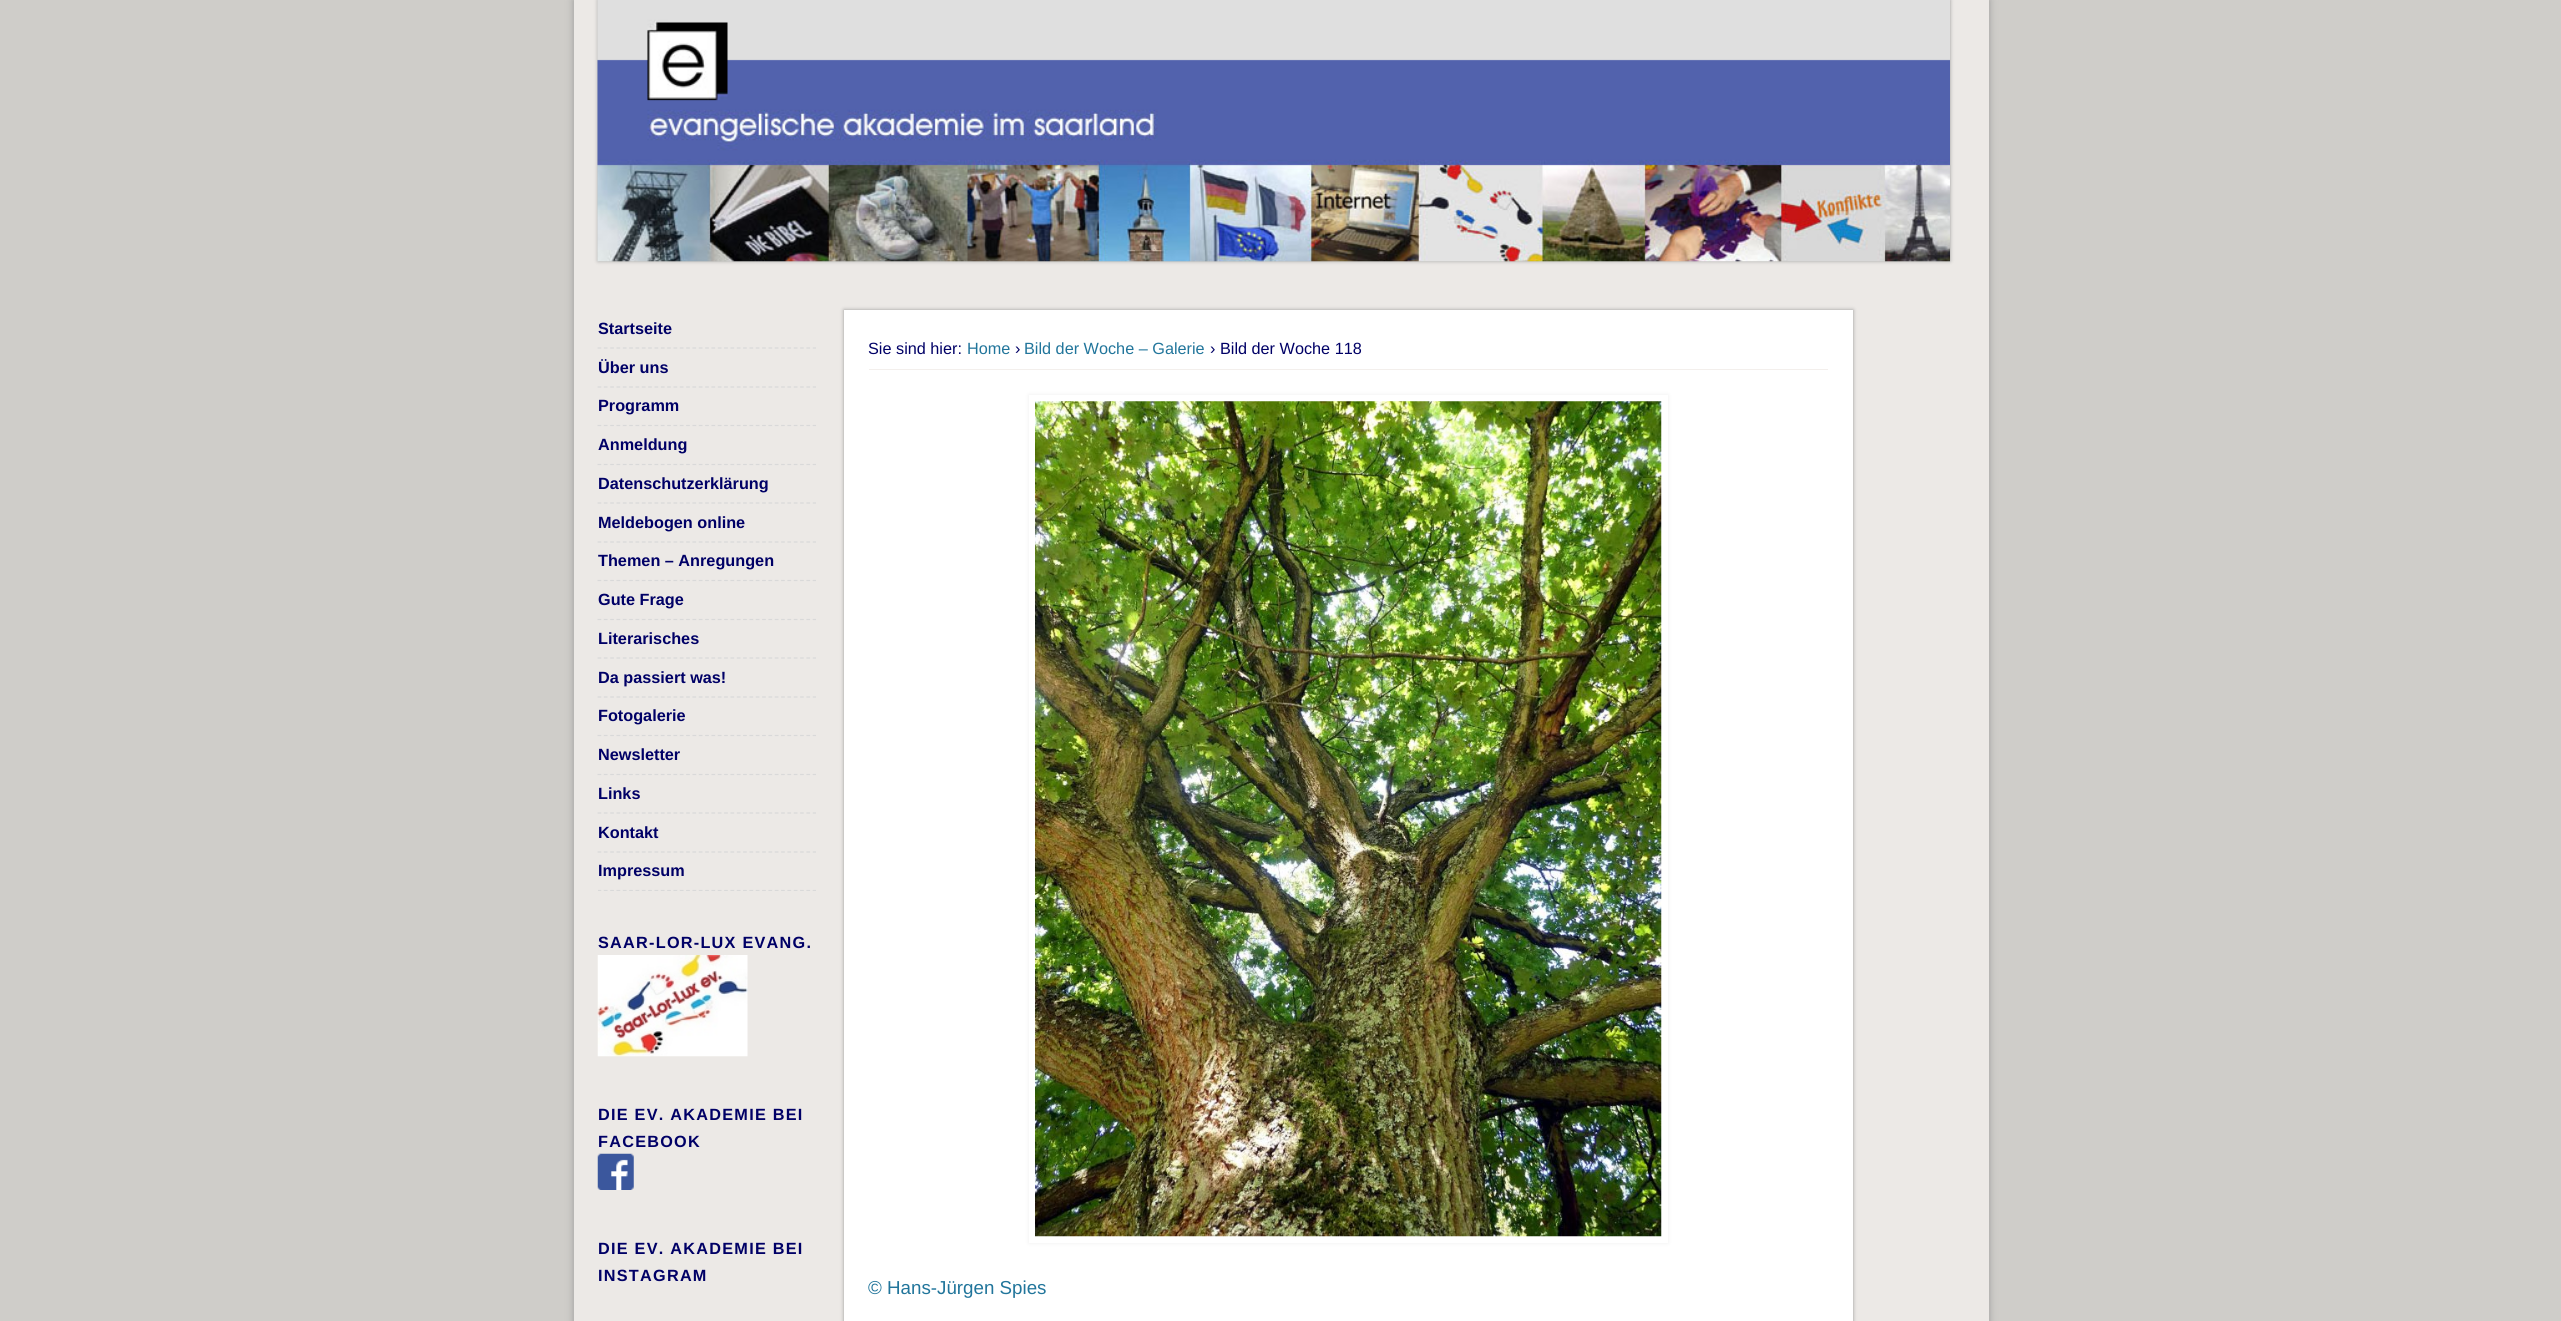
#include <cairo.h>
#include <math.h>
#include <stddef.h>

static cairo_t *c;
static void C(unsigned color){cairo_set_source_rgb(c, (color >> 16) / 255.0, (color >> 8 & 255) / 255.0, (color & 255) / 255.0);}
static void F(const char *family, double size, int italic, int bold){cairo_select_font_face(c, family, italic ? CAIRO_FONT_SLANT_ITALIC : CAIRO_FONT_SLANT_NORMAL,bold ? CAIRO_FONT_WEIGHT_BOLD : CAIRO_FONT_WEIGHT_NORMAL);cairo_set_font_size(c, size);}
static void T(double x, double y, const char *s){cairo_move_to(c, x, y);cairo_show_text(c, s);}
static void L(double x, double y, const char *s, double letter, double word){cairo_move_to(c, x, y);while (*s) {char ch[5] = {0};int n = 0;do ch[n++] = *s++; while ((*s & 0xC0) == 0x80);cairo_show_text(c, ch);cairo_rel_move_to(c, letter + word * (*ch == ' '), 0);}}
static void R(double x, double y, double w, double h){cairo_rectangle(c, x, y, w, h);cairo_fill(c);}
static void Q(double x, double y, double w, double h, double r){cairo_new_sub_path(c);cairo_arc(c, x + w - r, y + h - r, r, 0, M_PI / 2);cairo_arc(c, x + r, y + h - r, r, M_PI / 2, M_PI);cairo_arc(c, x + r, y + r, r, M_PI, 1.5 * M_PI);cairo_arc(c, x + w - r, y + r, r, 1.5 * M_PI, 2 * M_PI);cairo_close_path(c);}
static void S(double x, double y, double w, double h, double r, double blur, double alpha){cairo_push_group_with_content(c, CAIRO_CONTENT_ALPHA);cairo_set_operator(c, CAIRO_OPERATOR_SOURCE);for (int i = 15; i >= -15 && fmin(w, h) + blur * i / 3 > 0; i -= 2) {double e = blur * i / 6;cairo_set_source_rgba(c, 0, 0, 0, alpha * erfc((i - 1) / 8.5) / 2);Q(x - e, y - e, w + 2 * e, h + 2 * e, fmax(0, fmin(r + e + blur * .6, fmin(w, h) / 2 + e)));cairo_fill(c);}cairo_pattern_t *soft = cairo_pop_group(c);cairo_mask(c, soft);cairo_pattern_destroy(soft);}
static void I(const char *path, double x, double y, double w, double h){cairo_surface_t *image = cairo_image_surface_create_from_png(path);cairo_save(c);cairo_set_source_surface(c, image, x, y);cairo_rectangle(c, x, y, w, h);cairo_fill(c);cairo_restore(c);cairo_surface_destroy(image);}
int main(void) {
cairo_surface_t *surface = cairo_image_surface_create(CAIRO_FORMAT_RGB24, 2561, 1321);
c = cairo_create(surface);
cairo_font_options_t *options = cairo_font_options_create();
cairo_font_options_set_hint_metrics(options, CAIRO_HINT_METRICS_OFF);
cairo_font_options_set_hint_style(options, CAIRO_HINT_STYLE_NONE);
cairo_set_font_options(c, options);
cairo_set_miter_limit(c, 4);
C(0xcfcdc9);
cairo_paint(c);
C(0x999999);
S(574,0,1415,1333,0,4,1);
C(0xece9e6);
R(574,0,1415,1321);
C(0x999999);
S(598,0,1352,261,0,2,1);
I("1.png",597,0,1353,262);
cairo_new_path(c);
cairo_move_to(c,597.5,348);
cairo_line_to(c,816,348);
C(0xd9d9d9);
cairo_set_line_width(c,1.2);
cairo_set_dash(c,(double[]){3.75,2.58},2,0);
cairo_stroke(c);
F("Liberation Sans",16.25,0,1);
C(0x000066);
T(598,334,"Startseite");
cairo_new_path(c);
cairo_move_to(c,597.5,387);
cairo_line_to(c,816,387);
C(0xd9d9d9);
cairo_stroke(c);
C(0x000066);
T(598,373,"Über uns");
cairo_new_path(c);
cairo_move_to(c,597.5,425.5);
cairo_line_to(c,816,425.5);
C(0xd9d9d9);
cairo_stroke(c);
C(0x000066);
T(598,411,"Programm");
cairo_new_path(c);
cairo_move_to(c,597.5,464.5);
cairo_line_to(c,816,464.5);
C(0xd9d9d9);
cairo_stroke(c);
C(0x000066);
T(598,450,"Anmeldung");
cairo_new_path(c);
cairo_move_to(c,597.5,503);
cairo_line_to(c,816,503);
C(0xd9d9d9);
cairo_stroke(c);
C(0x000066);
T(598,489,"Datenschutzerklärung");
cairo_new_path(c);
cairo_move_to(c,597.5,542);
cairo_line_to(c,816,542);
C(0xd9d9d9);
cairo_stroke(c);
C(0x000066);
T(598,528,"Meldebogen online");
cairo_new_path(c);
cairo_move_to(c,597.5,580.5);
cairo_line_to(c,816,580.5);
C(0xd9d9d9);
cairo_stroke(c);
C(0x000066);
T(598,566,"Themen – Anregungen");
cairo_new_path(c);
cairo_move_to(c,597.5,619.5);
cairo_line_to(c,816,619.5);
C(0xd9d9d9);
cairo_stroke(c);
C(0x000066);
T(598,605,"Gute Frage");
cairo_new_path(c);
cairo_move_to(c,597.5,658);
cairo_line_to(c,816,658);
C(0xd9d9d9);
cairo_stroke(c);
C(0x000066);
T(598,644,"Literarisches");
cairo_new_path(c);
cairo_move_to(c,597.5,697);
cairo_line_to(c,816,697);
C(0xd9d9d9);
cairo_stroke(c);
C(0x000066);
T(598,683,"Da passiert was!");
cairo_new_path(c);
cairo_move_to(c,597.5,735.5);
cairo_line_to(c,816,735.5);
C(0xd9d9d9);
cairo_stroke(c);
C(0x000066);
T(598,721,"Fotogalerie");
cairo_new_path(c);
cairo_move_to(c,597.5,774.5);
cairo_line_to(c,816,774.5);
C(0xd9d9d9);
cairo_stroke(c);
C(0x000066);
T(598,760,"Newsletter");
cairo_new_path(c);
cairo_move_to(c,597.5,813);
cairo_line_to(c,816,813);
C(0xd9d9d9);
cairo_stroke(c);
C(0x000066);
T(598,799,"Links");
cairo_new_path(c);
cairo_move_to(c,597.5,852);
cairo_line_to(c,816,852);
C(0xd9d9d9);
cairo_stroke(c);
C(0x000066);
T(598,838,"Kontakt");
cairo_save(c);
cairo_rectangle(c,598,310,218,581);
cairo_clip(c);
cairo_new_path(c);
cairo_move_to(c,597.5,890.5);
cairo_line_to(c,816,890.5);
C(0xd9d9d9);
cairo_stroke(c);
cairo_restore(c);
T(598,876,"Impressum");
L(598,948,"SAAR-LOR-LUX EVANG.",1.25,0);
I("2.png",597,955,151,102);
L(598,1120,"DIE EV. AKADEMIE BEI",1.25,0);
L(598,1147,"FACEBOOK",1.25,0);
I("3.png",597,1153,37,37);
L(598,1254,"DIE EV. AKADEMIE BEI",1.25,0);
L(598,1281,"INSTAGRAM",1.25,0);
C(0x999999);
S(844,310,1009,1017,0,2,1);
C(0xffffff);
R(844,310,1009,1011);
C(0xf3efec);
R(869,369,959,1);
F("Liberation Sans",16.25,0,0);
C(0x000066);
T(868,354,"Sie sind hier:");
C(0x21759b);
T(967,354,"Home");
C(0x000066);
T(1015,354,"›");
C(0x21759b);
T(1024,354,"Bild der Woche – Galerie");
C(0x000066);
T(1210,354,"› Bild der Woche 118");
C(0xeeeeee);
S(1029,395,639,848,0,2,1);
C(0xffffff);
R(1029,395,639,848);
I("4.png",1035,401,627,836);
F("Liberation Sans",18.75,0,0);
C(0x21759b);
T(868,1294,"© Hans-Jürgen Spies");
cairo_surface_write_to_png(surface, "o.png");
cairo_font_options_destroy(options);
cairo_destroy(c);
cairo_surface_destroy(surface);
return 0;
}
